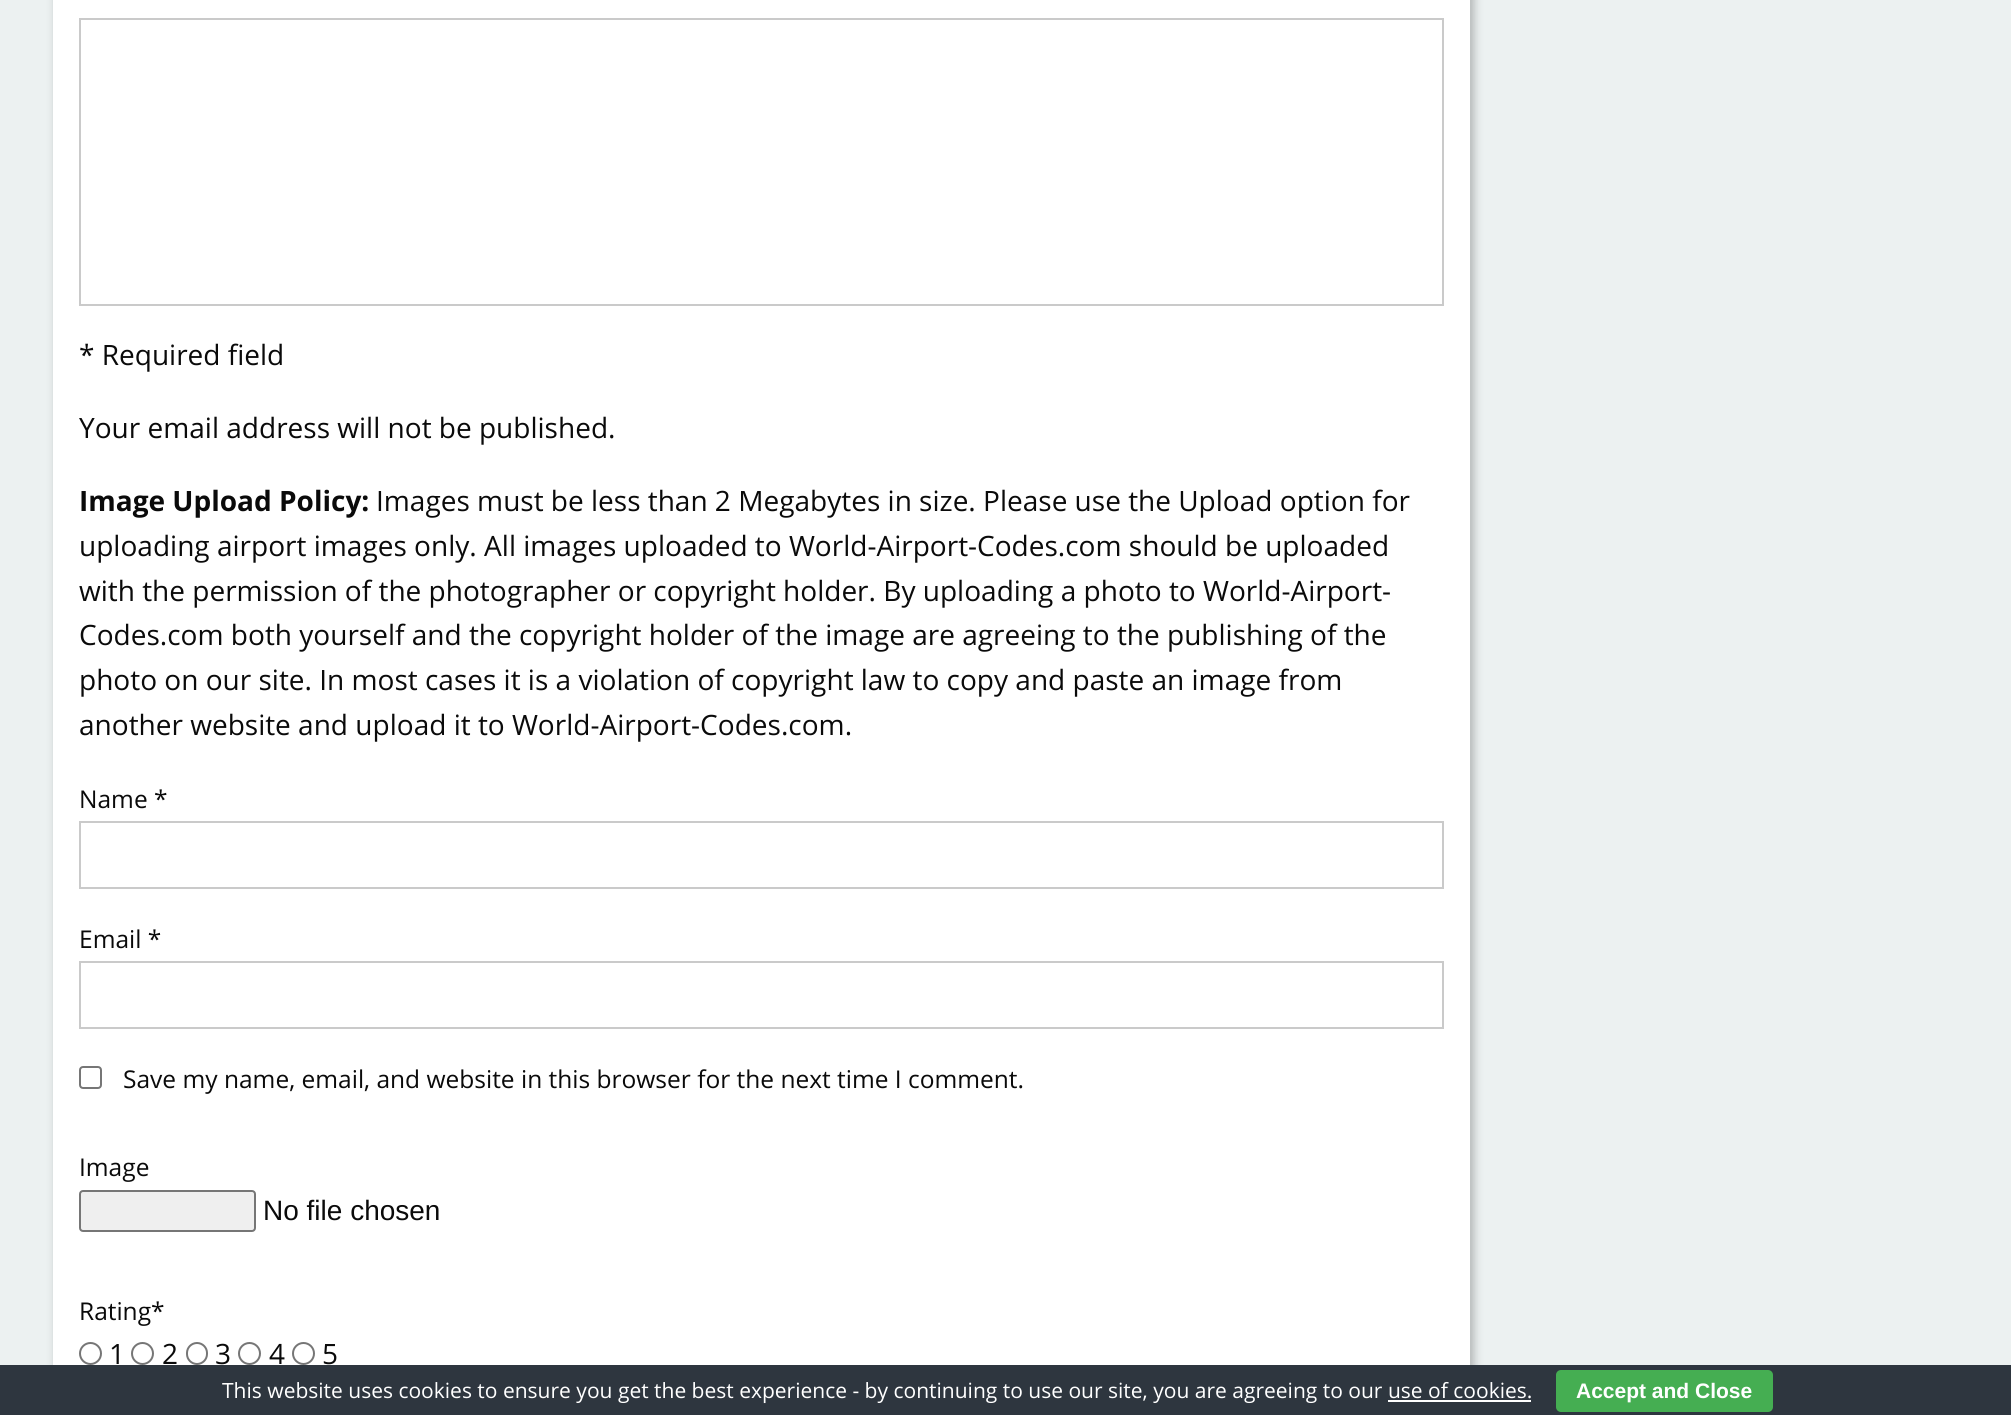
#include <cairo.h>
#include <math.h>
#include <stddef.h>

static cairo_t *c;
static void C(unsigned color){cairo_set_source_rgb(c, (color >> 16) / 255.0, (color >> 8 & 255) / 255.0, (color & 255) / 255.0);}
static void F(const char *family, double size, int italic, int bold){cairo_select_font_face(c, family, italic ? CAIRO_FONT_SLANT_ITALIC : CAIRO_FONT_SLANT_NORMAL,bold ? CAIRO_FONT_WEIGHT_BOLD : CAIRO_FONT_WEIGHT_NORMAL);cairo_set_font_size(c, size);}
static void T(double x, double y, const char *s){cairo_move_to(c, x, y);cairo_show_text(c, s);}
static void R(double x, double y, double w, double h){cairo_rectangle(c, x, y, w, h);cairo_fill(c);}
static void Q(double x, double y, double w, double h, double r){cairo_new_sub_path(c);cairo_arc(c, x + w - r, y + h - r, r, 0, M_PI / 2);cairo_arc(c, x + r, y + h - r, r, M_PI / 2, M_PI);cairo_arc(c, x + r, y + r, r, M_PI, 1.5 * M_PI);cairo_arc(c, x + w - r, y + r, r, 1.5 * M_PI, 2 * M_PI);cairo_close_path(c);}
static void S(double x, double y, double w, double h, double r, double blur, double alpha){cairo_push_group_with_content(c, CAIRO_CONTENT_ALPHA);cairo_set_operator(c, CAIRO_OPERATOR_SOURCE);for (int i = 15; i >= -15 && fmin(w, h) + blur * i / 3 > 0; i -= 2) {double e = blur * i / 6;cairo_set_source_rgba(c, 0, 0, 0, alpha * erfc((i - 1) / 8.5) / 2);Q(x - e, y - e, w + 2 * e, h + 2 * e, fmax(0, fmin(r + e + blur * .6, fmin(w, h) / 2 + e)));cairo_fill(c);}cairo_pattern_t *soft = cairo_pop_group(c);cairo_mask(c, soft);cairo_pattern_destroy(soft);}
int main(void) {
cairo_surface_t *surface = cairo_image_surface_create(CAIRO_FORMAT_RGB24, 2011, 1415);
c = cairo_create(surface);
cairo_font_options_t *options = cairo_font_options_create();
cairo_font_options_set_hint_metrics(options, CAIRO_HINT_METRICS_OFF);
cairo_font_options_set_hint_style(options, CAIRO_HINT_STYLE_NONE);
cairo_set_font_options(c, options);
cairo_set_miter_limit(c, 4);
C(0xecf1f1);
cairo_paint(c);
C(0x000000);
S(56,-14,1418,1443,0,4.5,.25);
C(0xffffff);
R(53,0,1417,1365);
cairo_rectangle(c,80,19,1363,286);
C(0xcacaca);
cairo_stroke(c);
F("Open Sans",28,0,0);
C(0x0a0a0a);
T(79,365,"* Required field");
T(79,438,"Your email address will not be published.");
F("Open Sans",28,0,1);
T(79,511,"Image Upload Policy:");
F("Open Sans",28,0,0);
T(376,511,"Images must be less than 2 Megabytes in size. Please use the Upload option for");
T(79,556,"uploading airport images only. All images uploaded to World-Airport-Codes.com should be uploaded");
T(79,601,"with the permission of the photographer or copyright holder. By uploading a photo to World-Airport-");
T(79,645,"Codes.com both yourself and the copyright holder of the image are agreeing to the publishing of the");
T(79,690,"photo on our site. In most cases it is a violation of copyright law to copy and paste an image from");
T(79,735,"another website and upload it to World-Airport-Codes.com.");
F("Open Sans",24.5,0,0);
T(79,808,"Name *");
cairo_rectangle(c,80,822,1363,66);
C(0xcacaca);
cairo_stroke(c);
C(0x0a0a0a);
T(79,948,"Email *");
cairo_rectangle(c,80,962,1363,66);
C(0xcacaca);
cairo_stroke(c);
Q(80,1067,21,21,3);
C(0x767676);
cairo_stroke(c);
C(0x0a0a0a);
T(123,1088,"Save my name, email, and website in this browser for the next time I comment.");
T(79,1176,"Image");
C(0xefefef);
Q(80,1191,175,40,3);
cairo_fill_preserve(c);
C(0x767676);
cairo_stroke(c);
F("Liberation Sans",28,0,0);
C(0x0a0a0a);
T(263,1220,"No file chosen");
F("Open Sans",24.5,0,0);
T(79,1320,"Rating*");
cairo_new_path(c);
cairo_arc(c,90.5,1353.5,10.5,0,2 * M_PI);
C(0x767676);
cairo_stroke(c);
F("Open Sans",28,0,0);
C(0x0a0a0a);
T(109,1364,"1");
cairo_new_path(c);
cairo_arc(c,142.5,1353.5,10.5,0,2 * M_PI);
C(0x767676);
cairo_stroke(c);
C(0x0a0a0a);
T(162,1364,"2");
Q(187,1343,20,21,10);
C(0x767676);
cairo_stroke(c);
C(0x0a0a0a);
T(215,1364,"3");
cairo_new_path(c);
cairo_arc(c,249.5,1353.5,10.5,0,2 * M_PI);
C(0x767676);
cairo_stroke(c);
C(0x0a0a0a);
T(269,1364,"4");
cairo_new_path(c);
cairo_arc(c,303.5,1353.5,10.5,0,2 * M_PI);
C(0x767676);
cairo_stroke(c);
C(0x0a0a0a);
T(322,1364,"5");
C(0x2e363f);
R(0,1365,2011,50);
F("Open Sans",21,0,0);
C(0xffffff);
T(222,1398,"This website uses cookies to ensure you get the best experience - by continuing to use our site, you are agreeing to our use of cookies.");
C(0x45ae52);
Q(1556,1370,217,42,5);
cairo_fill(c);
F("Liberation Sans",21,0,1);
C(0xffffff);
T(1576,1398,"Accept and Close");
R(1388,1400,143,2);
cairo_surface_write_to_png(surface, "o.png");
cairo_font_options_destroy(options);
cairo_destroy(c);
cairo_surface_destroy(surface);
return 0;
}
